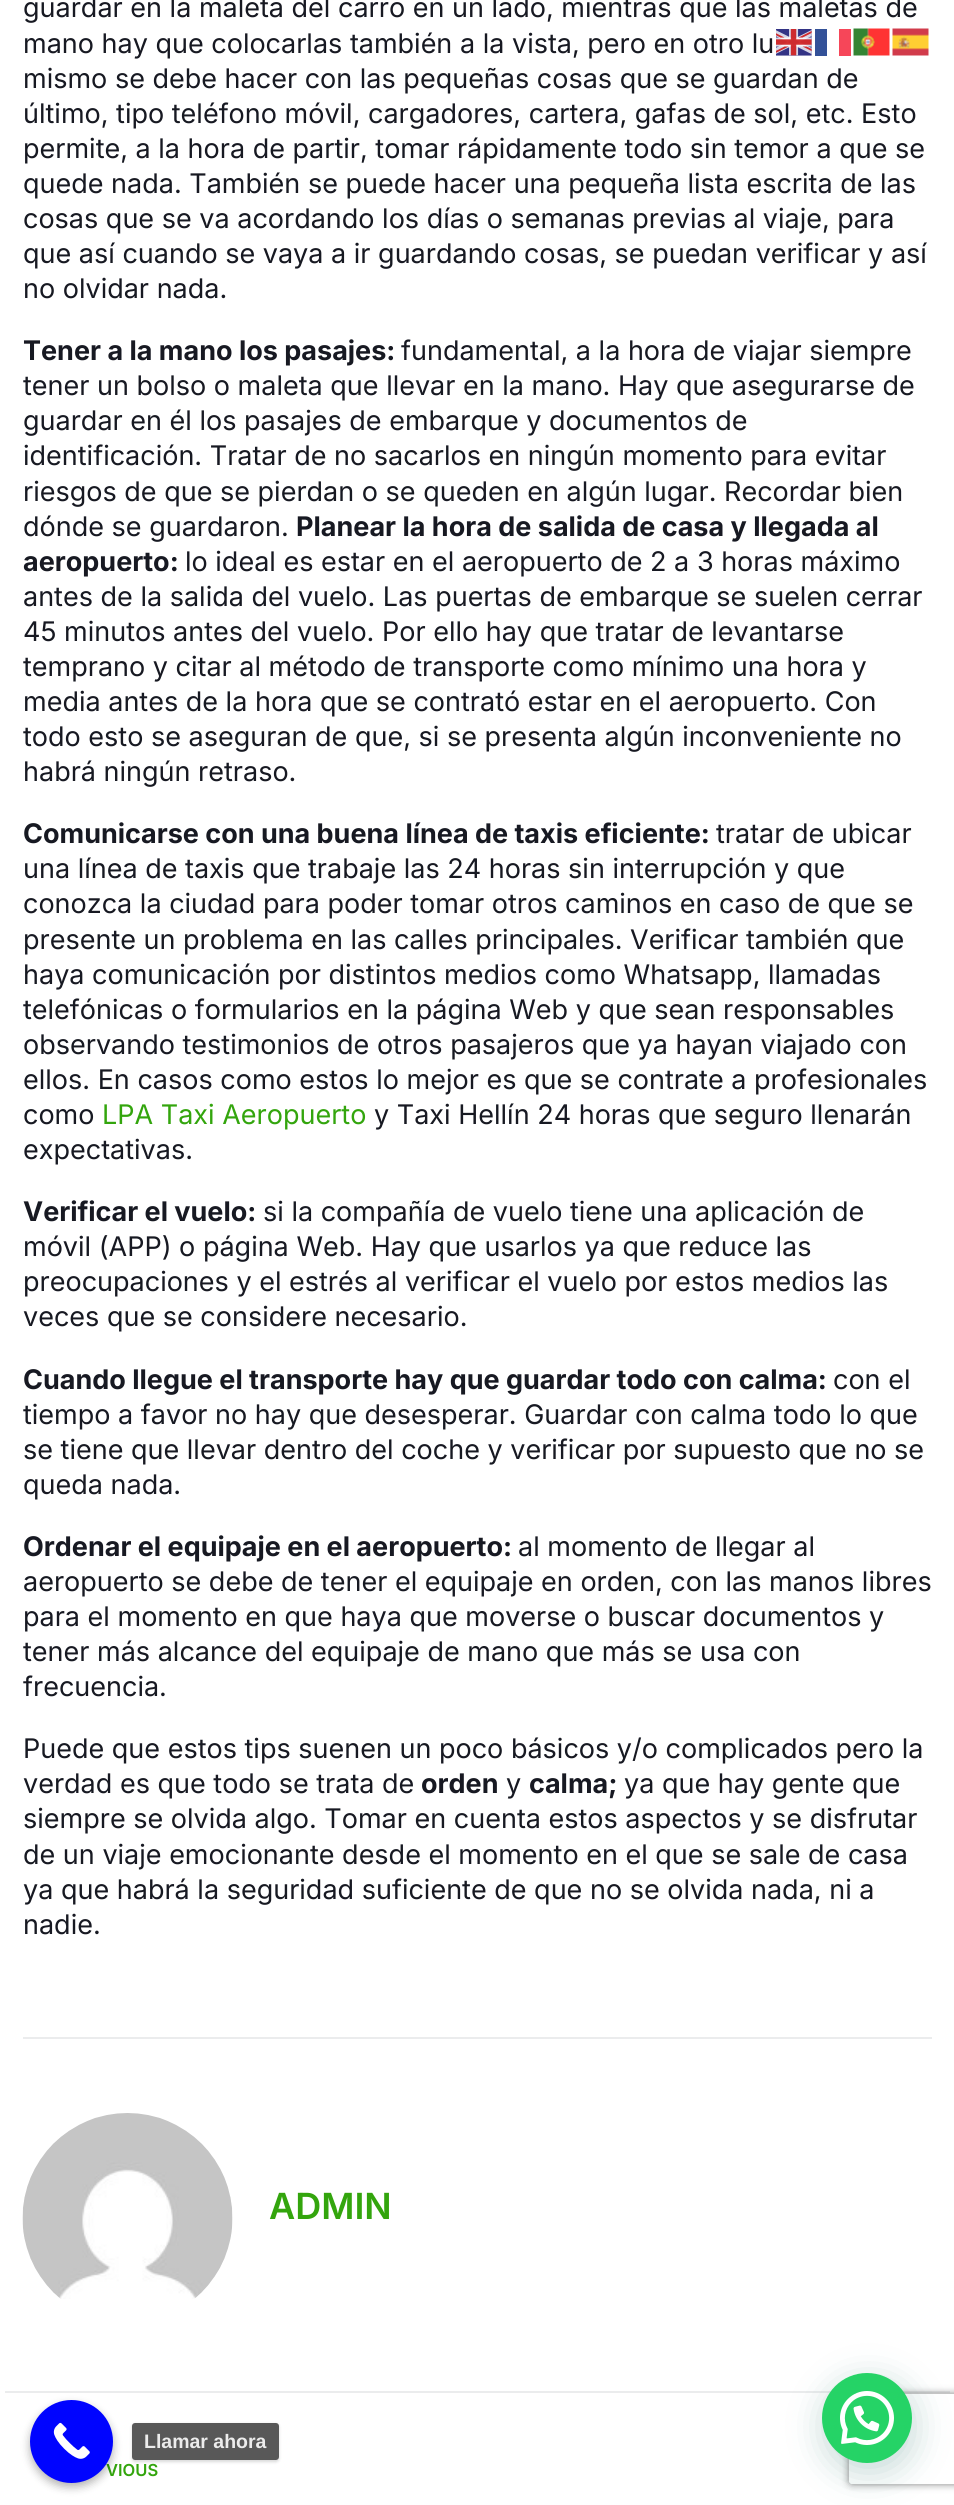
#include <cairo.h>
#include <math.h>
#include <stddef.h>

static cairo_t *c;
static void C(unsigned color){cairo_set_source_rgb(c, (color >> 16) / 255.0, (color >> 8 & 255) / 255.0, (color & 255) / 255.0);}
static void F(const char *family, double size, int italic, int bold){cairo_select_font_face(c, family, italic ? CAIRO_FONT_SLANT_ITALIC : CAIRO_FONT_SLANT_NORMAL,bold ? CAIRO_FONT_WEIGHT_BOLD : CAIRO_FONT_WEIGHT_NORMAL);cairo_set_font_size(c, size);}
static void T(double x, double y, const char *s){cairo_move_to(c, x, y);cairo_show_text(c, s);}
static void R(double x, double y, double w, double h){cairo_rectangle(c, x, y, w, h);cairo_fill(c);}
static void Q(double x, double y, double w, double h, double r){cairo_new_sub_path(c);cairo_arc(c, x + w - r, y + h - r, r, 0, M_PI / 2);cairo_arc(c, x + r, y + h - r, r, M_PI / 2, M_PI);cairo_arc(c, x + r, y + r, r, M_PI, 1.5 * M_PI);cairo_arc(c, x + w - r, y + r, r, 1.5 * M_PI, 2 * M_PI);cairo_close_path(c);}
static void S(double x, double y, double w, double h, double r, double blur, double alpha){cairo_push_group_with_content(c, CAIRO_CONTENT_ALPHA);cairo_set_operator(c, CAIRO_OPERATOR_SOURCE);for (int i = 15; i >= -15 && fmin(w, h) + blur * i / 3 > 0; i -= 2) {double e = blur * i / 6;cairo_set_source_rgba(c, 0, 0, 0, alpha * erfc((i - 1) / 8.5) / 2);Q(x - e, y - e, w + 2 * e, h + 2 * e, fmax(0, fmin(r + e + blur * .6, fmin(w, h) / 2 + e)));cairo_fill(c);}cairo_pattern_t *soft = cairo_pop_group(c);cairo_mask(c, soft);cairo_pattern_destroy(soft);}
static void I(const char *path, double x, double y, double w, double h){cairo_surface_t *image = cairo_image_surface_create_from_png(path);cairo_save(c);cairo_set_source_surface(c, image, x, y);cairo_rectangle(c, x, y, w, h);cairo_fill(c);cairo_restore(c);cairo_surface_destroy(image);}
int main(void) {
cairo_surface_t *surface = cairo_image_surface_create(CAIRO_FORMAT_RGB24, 954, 2505);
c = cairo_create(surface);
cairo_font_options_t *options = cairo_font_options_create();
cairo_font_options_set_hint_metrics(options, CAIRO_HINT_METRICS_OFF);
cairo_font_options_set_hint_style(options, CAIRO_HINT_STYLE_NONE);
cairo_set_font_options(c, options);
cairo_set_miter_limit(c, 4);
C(0xffffff);
cairo_paint(c);
C(0xebeced);
R(23,2037,909,2);
F("Inter",27,0,0);
C(0x171922);
T(23,17,"guardar en la maleta del carro en un lado, mientras que las maletas de");
T(23,53,"mano hay que colocarlas también a la vista, pero en otro lu");
T(23,88,"mismo se debe hacer con las pequeñas cosas que se guardan de");
T(23,123,"último, tipo teléfono móvil, cargadores, cartera, gafas de sol, etc. Esto");
T(23,158,"permite, a la hora de partir, tomar rápidamente todo sin temor a que se");
T(23,193,"quede nada. También se puede hacer una pequeña lista escrita de las");
T(23,228,"cosas que se va acordando los días o semanas previas al viaje, para");
T(23,263,"que así cuando se vaya a ir guardando cosas, se puedan verificar y así");
T(23,298,"no olvidar nada.");
F("Inter",27,0,1);
T(23,360,"Tener a la mano los pasajes:");
F("Inter",27,0,0);
T(401,360,"fundamental, a la hora de viajar siempre");
T(23,395,"tener un bolso o maleta que llevar en la mano. Hay que asegurarse de");
T(23,430,"guardar en él los pasajes de embarque y documentos de");
T(23,465,"identificación. Tratar de no sacarlos en ningún momento para evitar");
T(23,501,"riesgos de que se pierdan o se queden en algún lugar. Recordar bien");
T(23,536,"dónde se guardaron.");
F("Inter",27,0,1);
T(296,536,"Planear la hora de salida de casa y llegada al");
T(23,571,"aeropuerto:");
F("Inter",27,0,0);
T(185,571,"lo ideal es estar en el aeropuerto de 2 a 3 horas máximo");
T(23,606,"antes de la salida del vuelo. Las puertas de embarque se suelen cerrar");
T(23,641,"45 minutos antes del vuelo. Por ello hay que tratar de levantarse");
T(23,676,"temprano y citar al método de transporte como mínimo una hora y");
T(23,711,"media antes de la hora que se contrató estar en el aeropuerto. Con");
T(23,746,"todo esto se aseguran de que, si se presenta algún inconveniente no");
T(23,781,"habrá ningún retraso.");
F("Inter",27,0,1);
T(23,843,"Comunicarse con una buena línea de taxis eficiente:");
F("Inter",27,0,0);
T(716,843,"tratar de ubicar");
T(23,878,"una línea de taxis que trabaje las 24 horas sin interrupción y que");
T(23,913,"conozca la ciudad para poder tomar otros caminos en caso de que se");
T(23,949,"presente un problema en las calles principales. Verificar también que");
T(23,984,"haya comunicación por distintos medios como Whatsapp, llamadas");
T(23,1019,"telefónicas o formularios en la página Web y que sean responsables");
T(23,1054,"observando testimonios de otros pasajeros que ya hayan viajado con");
T(23,1089,"ellos. En casos como estos lo mejor es que se contrate a profesionales");
T(23,1124,"como");
C(0x33a50d);
T(102,1124,"LPA Taxi Aeropuerto");
C(0x171922);
T(374,1124,"y Taxi Hellín 24 horas que seguro llenarán");
T(23,1159,"expectativas.");
F("Inter",27,0,1);
T(23,1221,"Verificar el vuelo:");
F("Inter",27,0,0);
T(263,1221,"si la compañía de vuelo tiene una aplicación de");
T(23,1256,"móvil (APP) o página Web. Hay que usarlos ya que reduce las");
T(23,1291,"preocupaciones y el estrés al verificar el vuelo por estos medios las");
T(23,1326,"veces que se considere necesario.");
F("Inter",27,0,1);
T(23,1389,"Cuando llegue el transporte hay que guardar todo con calma:");
F("Inter",27,0,0);
T(833,1389,"con el");
T(23,1424,"tiempo a favor no hay que desesperar. Guardar con calma todo lo que");
T(23,1459,"se tiene que llevar dentro del coche y verificar por supuesto que no se");
T(23,1494,"queda nada.");
F("Inter",27,0,1);
T(23,1556,"Ordenar el equipaje en el aeropuerto:");
F("Inter",27,0,0);
T(518,1556,"al momento de llegar al");
T(23,1591,"aeropuerto se debe de tener el equipaje en orden, con las manos libres");
T(23,1626,"para el momento en que haya que moverse o buscar documentos y");
T(23,1661,"tener más alcance del equipaje de mano que más se usa con");
T(23,1696,"frecuencia.");
T(23,1758,"Puede que estos tips suenen un poco básicos y/o complicados pero la");
T(23,1793,"verdad es que todo se trata de");
F("Inter",27,0,1);
T(421,1793,"orden");
F("Inter",27,0,0);
T(506,1793,"y");
F("Inter",27,0,1);
T(529,1793,"calma;");
F("Inter",27,0,0);
T(624,1793,"ya que hay gente que");
T(23,1828,"siempre se olvida algo. Tomar en cuenta estos aspectos y se disfrutar");
T(23,1864,"de un viaje emocionante desde el momento en el que se sale de casa");
T(23,1899,"ya que habrá la seguridad suficiente de que no se olvida nada, ni a");
T(23,1934,"nadie.");
C(0xebeced);
R(5,2391,945,2);
I("1.png",22,2113,211,186);
F("Inter SemiBold",36,0,0);
C(0x33a50d);
T(269,2219,"ADMIN");
F("Inter SemiBold",16.5,0,0);
T(106,2476,"VIOUS");
I("2.png",776,29,36,27);
cairo_set_source_rgba(c,0,0.149,0.498,0.8);
R(815,29,12,27);
cairo_set_source_rgba(c,0.953,0.094,0.188,0.8);
R(839,29,12,27);
I("3.png",853,28,37,28);
I("4.png",892,28,37,28);
C(0x075e54);
S(824,2382,90,90,45,18,.24);
cairo_save(c);
cairo_set_fill_rule(c,CAIRO_FILL_RULE_EVEN_ODD);
cairo_new_path(c);
cairo_move_to(c,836,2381);
cairo_line_to(c,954,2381);
cairo_line_to(c,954,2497);
cairo_line_to(c,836,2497);
cairo_close_path(c);
cairo_move_to(c,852,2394);
cairo_line_to(c,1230,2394);
cairo_curve_to(c,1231.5,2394,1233,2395.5,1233,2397);
cairo_line_to(c,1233,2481);
cairo_curve_to(c,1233,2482.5,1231.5,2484,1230,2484);
cairo_line_to(c,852,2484);
cairo_curve_to(c,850.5,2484,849,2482.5,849,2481);
cairo_line_to(c,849,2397);
cairo_curve_to(c,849,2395.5,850.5,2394,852,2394);
cairo_close_path(c);
cairo_clip(c);
C(0x808080);
S(849,2394,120,90,3,4,1);
cairo_restore(c);
C(0x25d366);
cairo_arc(c,867,2418,45,0,2 * M_PI);
cairo_fill(c);
I("5.png",840,2391,54,54);
C(0x000000);
S(30,2405,83,82,41,4.5,.3);
C(0x0004ff);
cairo_arc(c,71.5,2441.5,41.5,0,2 * M_PI);
cairo_fill(c);
I("6.png",53,2422,37,37);
cairo_save(c);
cairo_set_fill_rule(c,CAIRO_FILL_RULE_EVEN_ODD);
cairo_new_path(c);
cairo_move_to(c,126,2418);
cairo_line_to(c,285,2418);
cairo_line_to(c,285,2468);
cairo_line_to(c,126,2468);
cairo_close_path(c);
cairo_move_to(c,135,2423);
cairo_line_to(c,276,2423);
cairo_curve_to(c,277.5,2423,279,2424.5,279,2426);
cairo_line_to(c,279,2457);
cairo_curve_to(c,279,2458.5,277.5,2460,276,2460);
cairo_line_to(c,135,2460);
cairo_curve_to(c,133.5,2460,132,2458.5,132,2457);
cairo_line_to(c,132,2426);
cairo_curve_to(c,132,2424.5,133.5,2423,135,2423);
cairo_close_path(c);
cairo_clip(c);
C(0x000000);
S(132,2424,147,38,3,1.5,.15);
cairo_restore(c);
cairo_set_source_rgba(c,0.275,0.275,0.275,0.9);
Q(132,2423,147,37,3);
cairo_fill(c);
F("Liberation Sans",19.5,0,1);
C(0xececec);
T(144,2448,"Llamar ahora");
cairo_surface_write_to_png(surface, "o.png");
cairo_font_options_destroy(options);
cairo_destroy(c);
cairo_surface_destroy(surface);
return 0;
}
